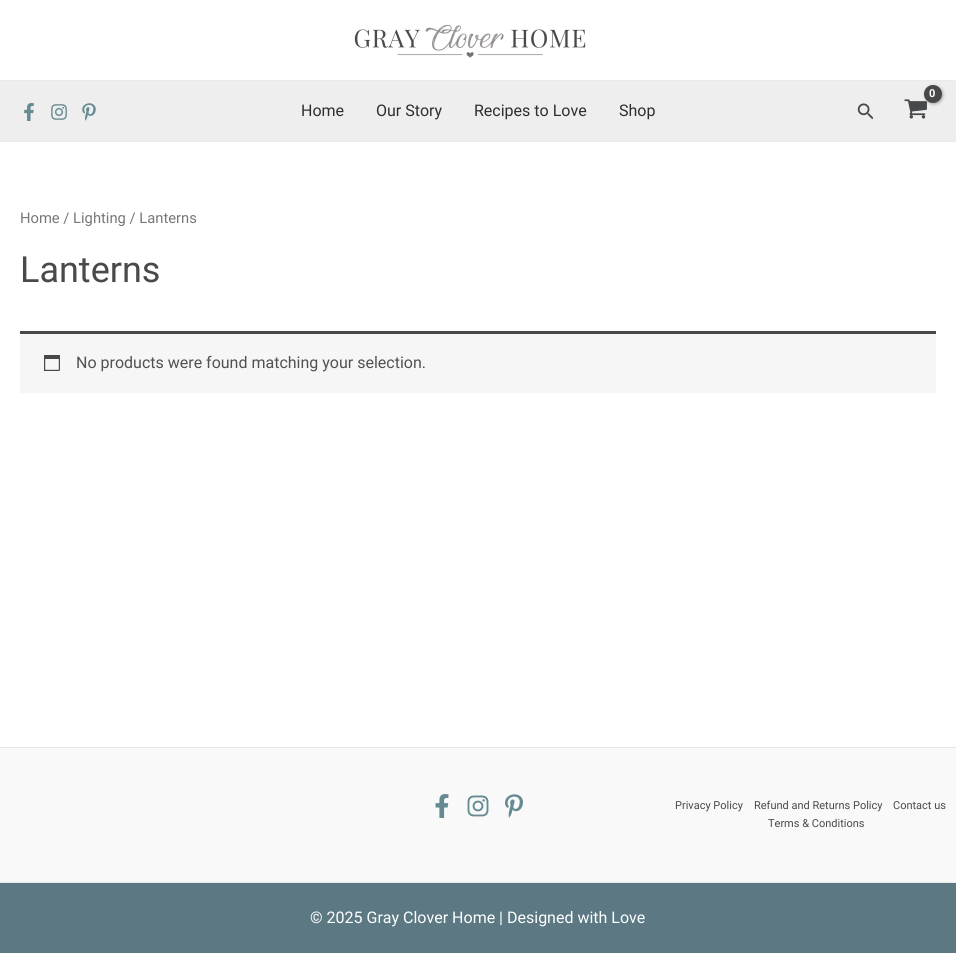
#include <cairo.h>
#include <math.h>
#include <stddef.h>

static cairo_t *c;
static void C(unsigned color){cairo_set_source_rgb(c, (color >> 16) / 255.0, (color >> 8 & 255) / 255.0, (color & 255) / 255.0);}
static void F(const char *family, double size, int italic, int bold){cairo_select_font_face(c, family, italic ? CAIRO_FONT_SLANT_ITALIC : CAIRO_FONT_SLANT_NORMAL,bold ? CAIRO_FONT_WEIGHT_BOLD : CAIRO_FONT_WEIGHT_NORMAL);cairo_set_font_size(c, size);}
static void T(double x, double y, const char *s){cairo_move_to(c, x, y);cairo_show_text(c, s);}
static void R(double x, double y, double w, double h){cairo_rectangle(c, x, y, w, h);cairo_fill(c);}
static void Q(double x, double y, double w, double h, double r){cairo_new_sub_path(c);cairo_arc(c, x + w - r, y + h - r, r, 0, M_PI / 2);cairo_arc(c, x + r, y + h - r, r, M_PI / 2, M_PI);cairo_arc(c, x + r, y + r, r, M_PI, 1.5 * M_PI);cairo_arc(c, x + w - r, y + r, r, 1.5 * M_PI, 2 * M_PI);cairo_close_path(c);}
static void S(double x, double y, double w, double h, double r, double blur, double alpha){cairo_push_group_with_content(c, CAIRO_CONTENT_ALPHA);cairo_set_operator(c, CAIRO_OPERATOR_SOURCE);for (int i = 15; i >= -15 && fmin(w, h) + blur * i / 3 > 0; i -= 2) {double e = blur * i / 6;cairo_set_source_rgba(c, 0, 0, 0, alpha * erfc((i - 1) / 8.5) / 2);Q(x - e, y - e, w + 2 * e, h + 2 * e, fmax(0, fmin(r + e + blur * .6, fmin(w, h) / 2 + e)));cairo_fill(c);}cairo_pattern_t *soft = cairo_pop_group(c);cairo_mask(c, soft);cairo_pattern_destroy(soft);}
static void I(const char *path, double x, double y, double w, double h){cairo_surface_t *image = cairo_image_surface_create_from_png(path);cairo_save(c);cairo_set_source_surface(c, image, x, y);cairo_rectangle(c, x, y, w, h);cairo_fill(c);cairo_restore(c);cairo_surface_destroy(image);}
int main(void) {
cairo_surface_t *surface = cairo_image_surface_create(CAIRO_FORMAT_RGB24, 956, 953);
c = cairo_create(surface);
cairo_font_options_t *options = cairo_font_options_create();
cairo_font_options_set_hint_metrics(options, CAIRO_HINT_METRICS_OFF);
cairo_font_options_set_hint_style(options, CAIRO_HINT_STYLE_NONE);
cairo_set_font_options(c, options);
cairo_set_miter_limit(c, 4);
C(0xffffff);
cairo_paint(c);
C(0xeeeeee);
R(0,81,956,60);
I("2.png",904,99,23,20);
C(0x000000);
S(925,86,18,18,9,1.5,.3);
C(0xeaeaea);
R(0,80,956,1);
I("1.png",354,24,232,34);
R(0,141,956,1);
C(0x474849);
cairo_arc(c,933,94,9,0,2 * M_PI);
cairo_fill(c);
F("Roboto",11,0,1);
C(0xffffff);
T(929,97,"0");
I("3.png",857,103,16,17);
I("4.png",24,103,10,18);
I("5.png",51,104,16,16);
I("6.png",82,103,14,18);
F("Roboto",16,0,0);
C(0x2f2e2e);
T(301,116,"Home");
T(376,116,"Our Story");
T(474,116,"Recipes to Love");
T(619,116,"Shop");
F("Roboto",14.75,0,0);
C(0x777777);
T(20,223,"Home / Lighting / Lanterns");
F("Roboto",36,0,0);
C(0x494949);
T(20,282,"Lanterns");
C(0xf7f6f7);
R(20,334,916,59);
C(0x474849);
R(20,331,916,3);
I("7.png",44,355,16,16);
F("Roboto",16,0,0);
C(0x515151);
T(76,368,"No products were found matching your selection.");
C(0xf9f9f9);
R(0,748,956,134);
C(0xe6e6e6);
R(0,747,956,1);
I("8.png",435,794,14,24);
I("9.png",467,795,22,22);
I("10.png",505,794,18,24);
F("Roboto",11,0,0);
C(0x494949);
T(675,809,"Privacy Policy");
T(754,809,"Refund and Returns Policy");
T(893,809,"Contact us");
T(768,827,"Terms & Conditions");
C(0x5b7883);
R(0,883,956,70);
C(0xeaeaea);
R(0,882,956,1);
F("Roboto",16,0,0);
C(0xffffff);
T(310,923,"© 2025 Gray Clover Home | Designed with Love");
cairo_surface_write_to_png(surface, "o.png");
cairo_font_options_destroy(options);
cairo_destroy(c);
cairo_surface_destroy(surface);
return 0;
}
